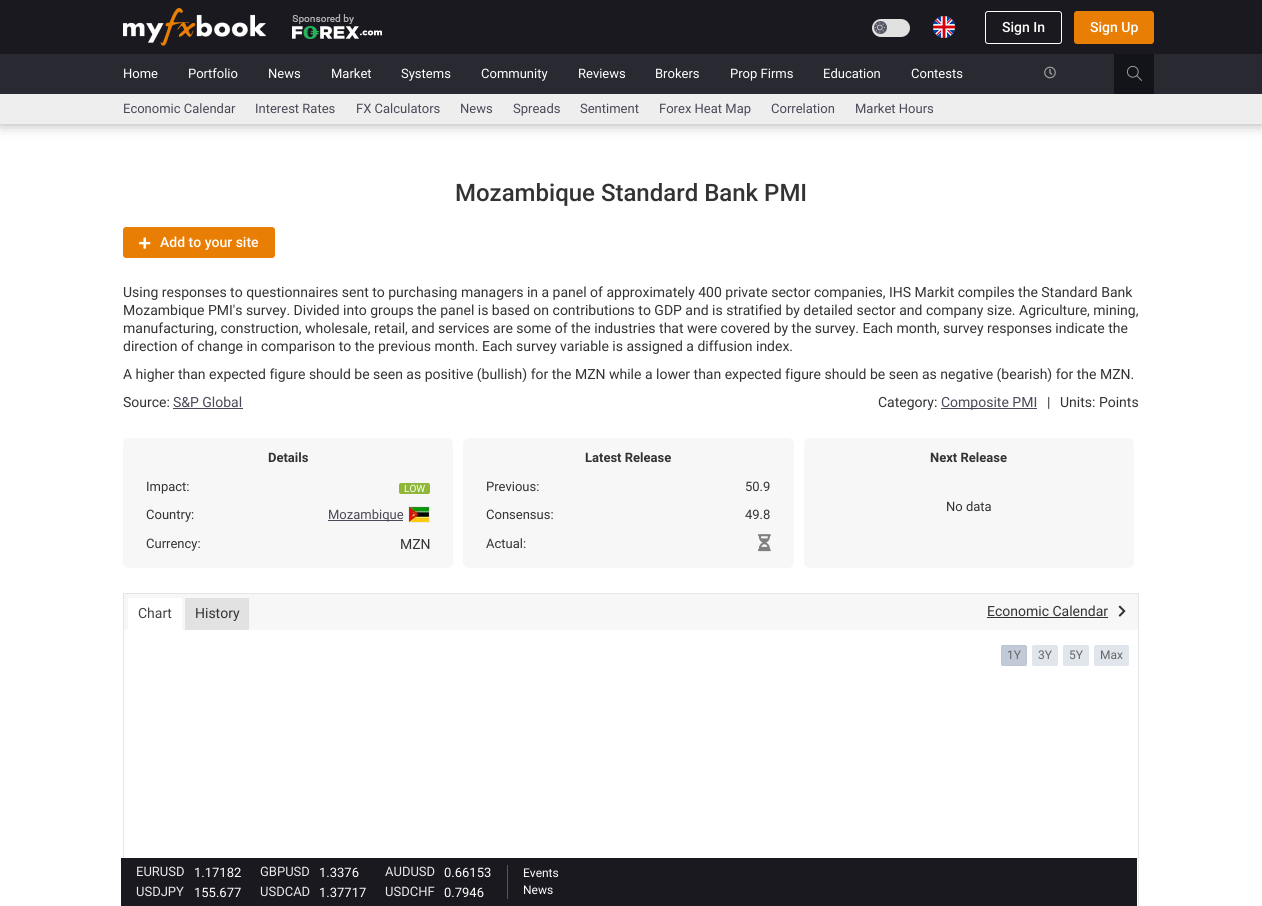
#include <cairo.h>
#include <math.h>
#include <stddef.h>

static cairo_t *c;
static void C(unsigned color){cairo_set_source_rgb(c, (color >> 16) / 255.0, (color >> 8 & 255) / 255.0, (color & 255) / 255.0);}
static void F(const char *family, double size, int italic, int bold){cairo_select_font_face(c, family, italic ? CAIRO_FONT_SLANT_ITALIC : CAIRO_FONT_SLANT_NORMAL,bold ? CAIRO_FONT_WEIGHT_BOLD : CAIRO_FONT_WEIGHT_NORMAL);cairo_set_font_size(c, size);}
static void T(double x, double y, const char *s){cairo_move_to(c, x, y);cairo_show_text(c, s);}
static void R(double x, double y, double w, double h){cairo_rectangle(c, x, y, w, h);cairo_fill(c);}
static void Q(double x, double y, double w, double h, double r){cairo_new_sub_path(c);cairo_arc(c, x + w - r, y + h - r, r, 0, M_PI / 2);cairo_arc(c, x + r, y + h - r, r, M_PI / 2, M_PI);cairo_arc(c, x + r, y + r, r, M_PI, 1.5 * M_PI);cairo_arc(c, x + w - r, y + r, r, 1.5 * M_PI, 2 * M_PI);cairo_close_path(c);}
static void S(double x, double y, double w, double h, double r, double blur, double alpha){cairo_push_group_with_content(c, CAIRO_CONTENT_ALPHA);cairo_set_operator(c, CAIRO_OPERATOR_SOURCE);for (int i = 15; i >= -15 && fmin(w, h) + blur * i / 3 > 0; i -= 2) {double e = blur * i / 6;cairo_set_source_rgba(c, 0, 0, 0, alpha * erfc((i - 1) / 8.5) / 2);Q(x - e, y - e, w + 2 * e, h + 2 * e, fmax(0, fmin(r + e + blur * .6, fmin(w, h) / 2 + e)));cairo_fill(c);}cairo_pattern_t *soft = cairo_pop_group(c);cairo_mask(c, soft);cairo_pattern_destroy(soft);}
static void I(const char *path, double x, double y, double w, double h){cairo_surface_t *image = cairo_image_surface_create_from_png(path);cairo_save(c);cairo_set_source_surface(c, image, x, y);cairo_rectangle(c, x, y, w, h);cairo_fill(c);cairo_restore(c);cairo_surface_destroy(image);}
int main(void) {
cairo_surface_t *surface = cairo_image_surface_create(CAIRO_FORMAT_RGB24, 1262, 906);
c = cairo_create(surface);
cairo_font_options_t *options = cairo_font_options_create();
cairo_font_options_set_hint_metrics(options, CAIRO_HINT_METRICS_OFF);
cairo_font_options_set_hint_style(options, CAIRO_HINT_STYLE_NONE);
cairo_set_font_options(c, options);
cairo_set_miter_limit(c, 4);
C(0xffffff);
cairo_paint(c);
C(0x19191f);
R(0,0,1262,54);
I("1.png",123,8,143,38);
I("2.png",292,14,90,25);
C(0xe1e1e1);
Q(872,19,38,18,9);
cairo_fill(c);
C(0x565764);
cairo_arc(c,880.5,27.5,6.5,0,2 * M_PI);
cairo_fill(c);
I("3.png",874,22,11,11);
I("4.png",933,16,22,22);
Q(985.5,11.5,76,32,2.5);
C(0xffffff);
cairo_set_line_width(c,1);
cairo_stroke(c);
F("Roboto Medium",14,0,0);
T(1002,32,"Sign In");
C(0xe87e04);
Q(1074,11,80,33,3);
cairo_fill(c);
C(0xffffff);
T(1090,32,"Sign Up");
C(0x000000);
S(0,89,1262,30,0,8.5,.64);
C(0x292932);
R(0,54,1262,40);
F("Roboto",13,0,0);
C(0xffffff);
T(123,78,"Home");
T(188,78,"Portfolio");
T(268,78,"News");
T(331,78,"Market");
T(401,78,"Systems");
T(481,78,"Community");
T(578,78,"Reviews");
T(655,78,"Brokers");
T(730,78,"Prop Firms");
T(823,78,"Education");
T(911,78,"Contests");
I("5.png",1044,66,12,13);
C(0x13131a);
R(1114,54,40,40);
I("6.png",1127,65,15,16);
C(0xeeeeee);
R(0,94,1262,30);
C(0x494959);
T(123,113,"Economic Calendar");
T(255,113,"Interest Rates");
T(356,113,"FX Calculators");
T(460,113,"News");
T(513,113,"Spreads");
T(580,113,"Sentiment");
T(659,113,"Forex Heat Map");
T(771,113,"Correlation");
T(855,113,"Market Hours");
F("Roboto Medium",24,0,0);
C(0x333333);
T(455,201,"Mozambique Standard Bank PMI");
C(0xe87e04);
Q(123,227,152,31,3);
cairo_fill(c);
I("7.png",139,237,12,12);
F("Roboto Medium",14,0,0);
C(0xffffff);
T(160,247,"Add to your site");
F("Roboto",14,0,0);
C(0x333333);
T(123,297,"Using responses to questionnaires sent to purchasing managers in a panel of approximately 400 private sector companies, IHS Markit compiles the Standard Bank");
T(123,315,"Mozambique PMI's survey. Divided into groups the panel is based on contributions to GDP and is stratified by detailed sector and company size. Agriculture, mining,");
T(123,333,"manufacturing, construction, wholesale, retail, and services are some of the industries that were covered by the survey. Each month, survey responses indicate the");
T(123,351,"direction of change in comparison to the previous month. Each survey variable is assigned a diffusion index.");
T(123,379,"A higher than expected figure should be seen as positive (bullish) for the MZN while a lower than expected figure should be seen as negative (bearish) for the MZN.");
T(123,407,"Source:");
C(0x494959);
T(173,407,"S&P Global");
R(173,408,70,1);
C(0x333333);
T(878,407,"Category:");
C(0x494959);
R(941,408,96,1);
T(941,407,"Composite PMI");
C(0x333333);
T(1047,407,"|");
T(1060,407,"Units: Points");
C(0xf7f7f7);
Q(123,438,330,130,6);
cairo_fill(c);
F("Roboto",13,0,1);
C(0x333333);
T(268,462,"Details");
F("Roboto",13,0,0);
T(146,491,"Impact:");
C(0x90b73a);
Q(399,483,31,11,2);
cairo_fill(c);
F("Roboto",10,0,0);
C(0xffffff);
T(404,492,"LOW");
F("Roboto",13,0,0);
C(0x333333);
T(146,519,"Country:");
C(0x494959);
R(328,520,75,1);
T(328,519,"Mozambique");
I("8.png",409,507,20,15);
cairo_rectangle(c,408.5,506.5,21,16);
C(0xebebeb);
cairo_stroke(c);
C(0x333333);
T(146,548,"Currency:");
F("Roboto",14,0,0);
T(400,549,"MZN");
C(0xf7f7f7);
Q(463,438,331,130,6);
cairo_fill(c);
F("Roboto",13,0,1);
C(0x333333);
T(585,462,"Latest Release");
F("Roboto",13,0,0);
T(486,491,"Previous:");
T(745,491,"50.9");
T(486,519,"Consensus:");
T(745,519,"49.8");
T(486,548,"Actual:");
I("9.png",758,534,13,18);
C(0xf7f7f7);
Q(804,438,330,130,6);
cairo_fill(c);
F("Roboto",13,0,1);
C(0x333333);
T(930,462,"Next Release");
F("Roboto",13,0,0);
T(946,511,"No data");
cairo_rectangle(c,123.5,593.5,1015,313);
C(0xe6e6e6);
cairo_stroke(c);
C(0xf7f7f7);
R(124,594,1014,36);
C(0xffffff);
R(128,598,54,32);
F("Roboto",14,0,0);
C(0x434343);
T(138,618,"Chart");
C(0xe2e2e2);
R(185,598,64,32);
C(0x333333);
T(195,618,"History");
T(987,616,"Economic Calendar");
R(987,617,121,1);
I("10.png",1118,605,8,12);
C(0xc2cad8);
Q(1001.5,645.5,25,20,1.5);
cairo_fill_preserve(c);
C(0xbcc5d4);
cairo_stroke(c);
F("Roboto",12,0,0);
C(0x666666);
T(1007,659,"1Y");
C(0xe1e5ec);
Q(1032.5,645.5,25,20,1.5);
cairo_fill_preserve(c);
cairo_stroke(c);
C(0x666666);
T(1038,659,"3Y");
C(0xe1e5ec);
Q(1063.5,645.5,25,20,1.5);
cairo_fill_preserve(c);
cairo_stroke(c);
C(0x666666);
T(1069,659,"5Y");
C(0xe1e5ec);
Q(1094.5,645.5,34,20,1.5);
cairo_fill_preserve(c);
cairo_stroke(c);
C(0x666666);
T(1100,659,"Max");
C(0x19191f);
R(121,858,1016,48);
F("Roboto",13,0,0);
C(0xeaeaea);
T(136,876,"EURUSD");
C(0xffffff);
T(194,877,"1.17182");
C(0xeaeaea);
T(260,876,"GBPUSD");
C(0xffffff);
T(319,877,"1.3376");
C(0xeaeaea);
T(385,876,"AUDUSD");
C(0xffffff);
T(444,877,"0.66153");
C(0xeaeaea);
T(136,896,"USDJPY");
C(0xffffff);
T(194,897,"155.677");
C(0xeaeaea);
T(260,896,"USDCAD");
C(0xffffff);
T(319,897,"1.37717");
C(0xeaeaea);
T(385,896,"USDCHF");
C(0xffffff);
T(444,897,"0.7946");
C(0x565764);
R(507,865,1,34);
F("Roboto",12,0,0);
C(0xffffff);
T(523,877,"Events");
T(523,894,"News");
cairo_surface_write_to_png(surface, "o.png");
cairo_font_options_destroy(options);
cairo_destroy(c);
cairo_surface_destroy(surface);
return 0;
}
